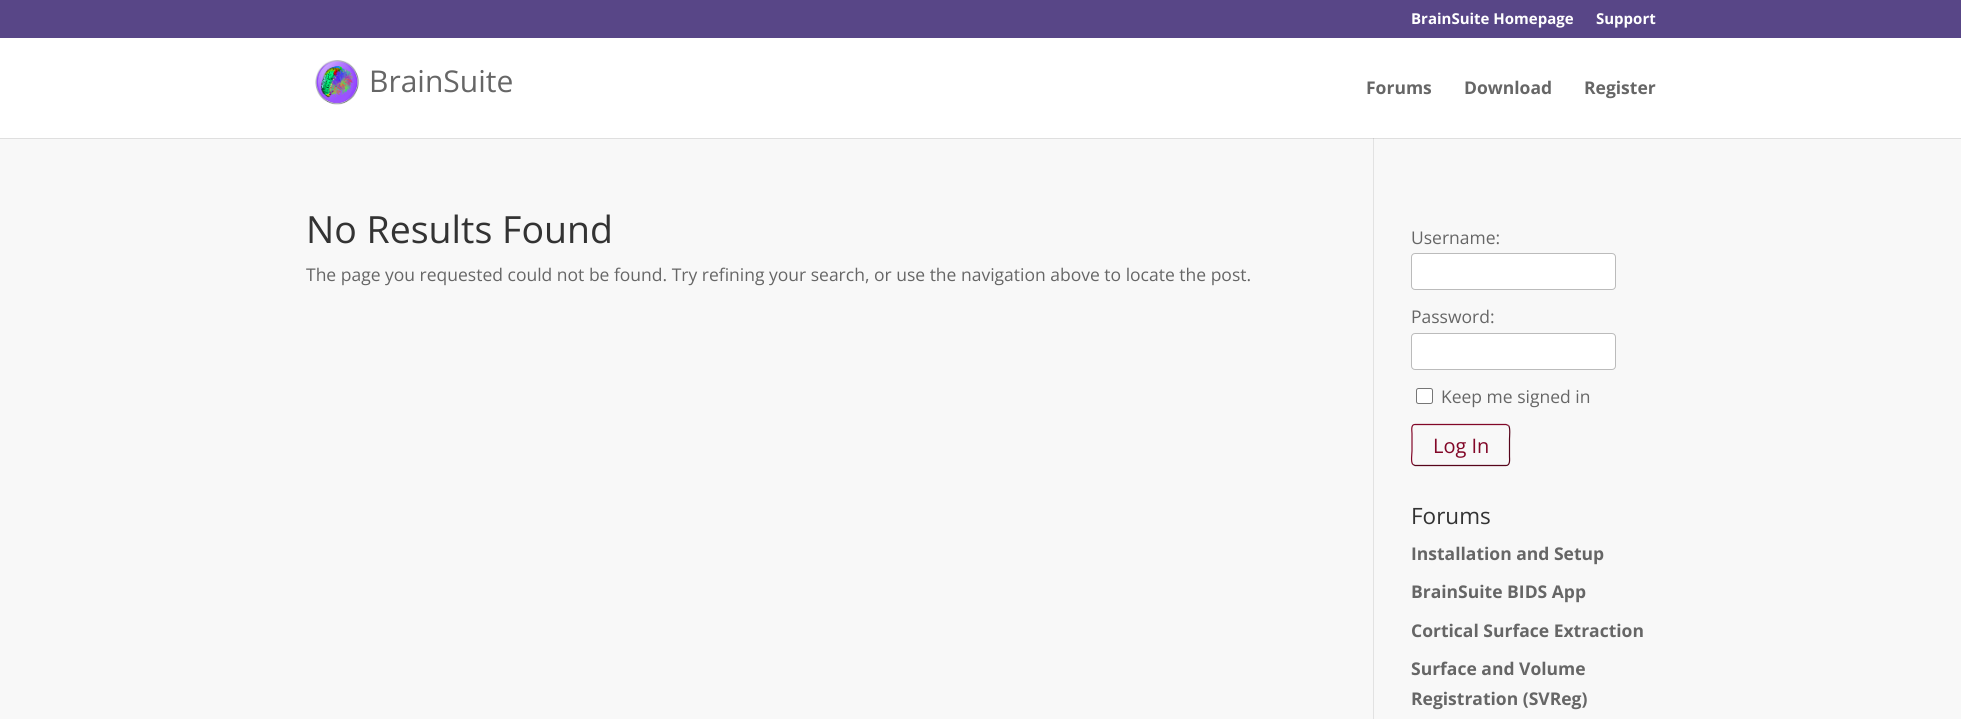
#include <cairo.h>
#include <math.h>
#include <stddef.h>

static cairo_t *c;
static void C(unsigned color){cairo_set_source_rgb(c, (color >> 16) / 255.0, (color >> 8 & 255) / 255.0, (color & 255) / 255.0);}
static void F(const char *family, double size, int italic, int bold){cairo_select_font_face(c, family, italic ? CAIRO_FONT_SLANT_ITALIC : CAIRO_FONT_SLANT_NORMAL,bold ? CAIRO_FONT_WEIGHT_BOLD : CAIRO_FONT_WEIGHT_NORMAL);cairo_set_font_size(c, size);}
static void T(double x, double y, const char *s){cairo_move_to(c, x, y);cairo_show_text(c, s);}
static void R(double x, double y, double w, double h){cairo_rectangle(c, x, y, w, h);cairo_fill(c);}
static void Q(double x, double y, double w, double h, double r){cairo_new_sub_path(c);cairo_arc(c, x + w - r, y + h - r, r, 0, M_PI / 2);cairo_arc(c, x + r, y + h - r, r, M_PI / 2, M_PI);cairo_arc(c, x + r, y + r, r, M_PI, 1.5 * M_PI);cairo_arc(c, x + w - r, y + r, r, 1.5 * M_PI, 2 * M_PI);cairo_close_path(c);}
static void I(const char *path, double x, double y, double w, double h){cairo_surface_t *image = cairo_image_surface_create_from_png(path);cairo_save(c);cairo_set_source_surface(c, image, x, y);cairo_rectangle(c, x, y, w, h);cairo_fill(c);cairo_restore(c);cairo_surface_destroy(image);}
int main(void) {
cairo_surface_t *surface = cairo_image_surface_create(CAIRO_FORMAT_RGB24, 1961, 719);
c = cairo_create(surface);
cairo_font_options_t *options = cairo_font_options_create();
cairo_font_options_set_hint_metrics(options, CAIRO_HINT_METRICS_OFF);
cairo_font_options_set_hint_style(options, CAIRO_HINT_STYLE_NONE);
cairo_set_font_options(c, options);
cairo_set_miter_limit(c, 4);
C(0xffffff);
cairo_paint(c);
C(0x584687);
R(0,0,1961,38);
F("Open Sans",15,0,1);
C(0xffffff);
T(1411,24,"BrainSuite Homepage");
T(1596,24,"Support");
I("1.png",315,60,44,45);
F("Open Sans",30,0,0);
C(0x666666);
T(369,92,"BrainSuite");
F("Open Sans",17.5,0,1);
T(1366,94,"Forums");
T(1464,94,"Download");
T(1584,94,"Register");
C(0xf8f8f8);
R(0,139,1961,580);
C(0xdfdfdf);
R(0,138,1961,1);
C(0xe2e2e2);
R(1373,138,1,581);
C(0xcbcbcb);
R(1373,138,1,1);
F("Open Sans",37.5,0,0);
C(0x333333);
T(306,243,"No Results Found");
F("Open Sans",17.5,0,0);
C(0x666666);
T(306,281,"The page you requested could not be found. Try refining your search, or use the navigation above to locate the post.");
T(1411,244,"Username:");
C(0xffffff);
Q(1411.5,253.5,204,36,3.5);
cairo_fill_preserve(c);
C(0xbbbbbb);
cairo_set_line_width(c,1);
cairo_stroke(c);
C(0x666666);
T(1411,323,"Password:");
C(0xffffff);
Q(1411.5,333.5,204,36,3.5);
cairo_fill_preserve(c);
C(0xbbbbbb);
cairo_stroke(c);
C(0xffffff);
Q(1416.5,388.5,16,15,2);
cairo_fill_preserve(c);
C(0x767676);
cairo_stroke(c);
C(0x666666);
T(1441,403,"Keep me signed in");
cairo_new_path(c);
cairo_move_to(c,1508.5,425.5);
cairo_curve_to(c,1510.5,427.5,1509.5,436.5,1509.5,439);
cairo_line_to(c,1509.5,456.5);
cairo_curve_to(c,1509.5,459,1510.5,465.5,1506,465.5);
cairo_line_to(c,1415,465.5);
cairo_line_to(c,1413,464.5);
C(0x57051b);
cairo_set_line_width(c,1.2);
cairo_stroke(c);
cairo_new_path(c);
cairo_move_to(c,1413,464.5);
cairo_curve_to(c,1410.5,462.5,1412,453.5,1412,451);
cairo_line_to(c,1412,433.5);
cairo_curve_to(c,1412,431,1410.5,424.5,1415,424.5);
cairo_line_to(c,1506,424.5);
cairo_line_to(c,1508.5,425.5);
C(0x820728);
cairo_stroke(c);
F("Open Sans",20,0,0);
T(1433,453,"Log In");
F("Open Sans",22.5,0,0);
C(0x333333);
T(1411,524,"Forums");
F("Open Sans",17.5,0,1);
C(0x666666);
T(1411,560,"Installation and Setup");
T(1411,598,"BrainSuite BIDS App");
T(1411,637,"Cortical Surface Extraction");
T(1411,675,"Surface and Volume");
T(1411,705,"Registration (SVReg)");
cairo_surface_write_to_png(surface, "o.png");
cairo_font_options_destroy(options);
cairo_destroy(c);
cairo_surface_destroy(surface);
return 0;
}
